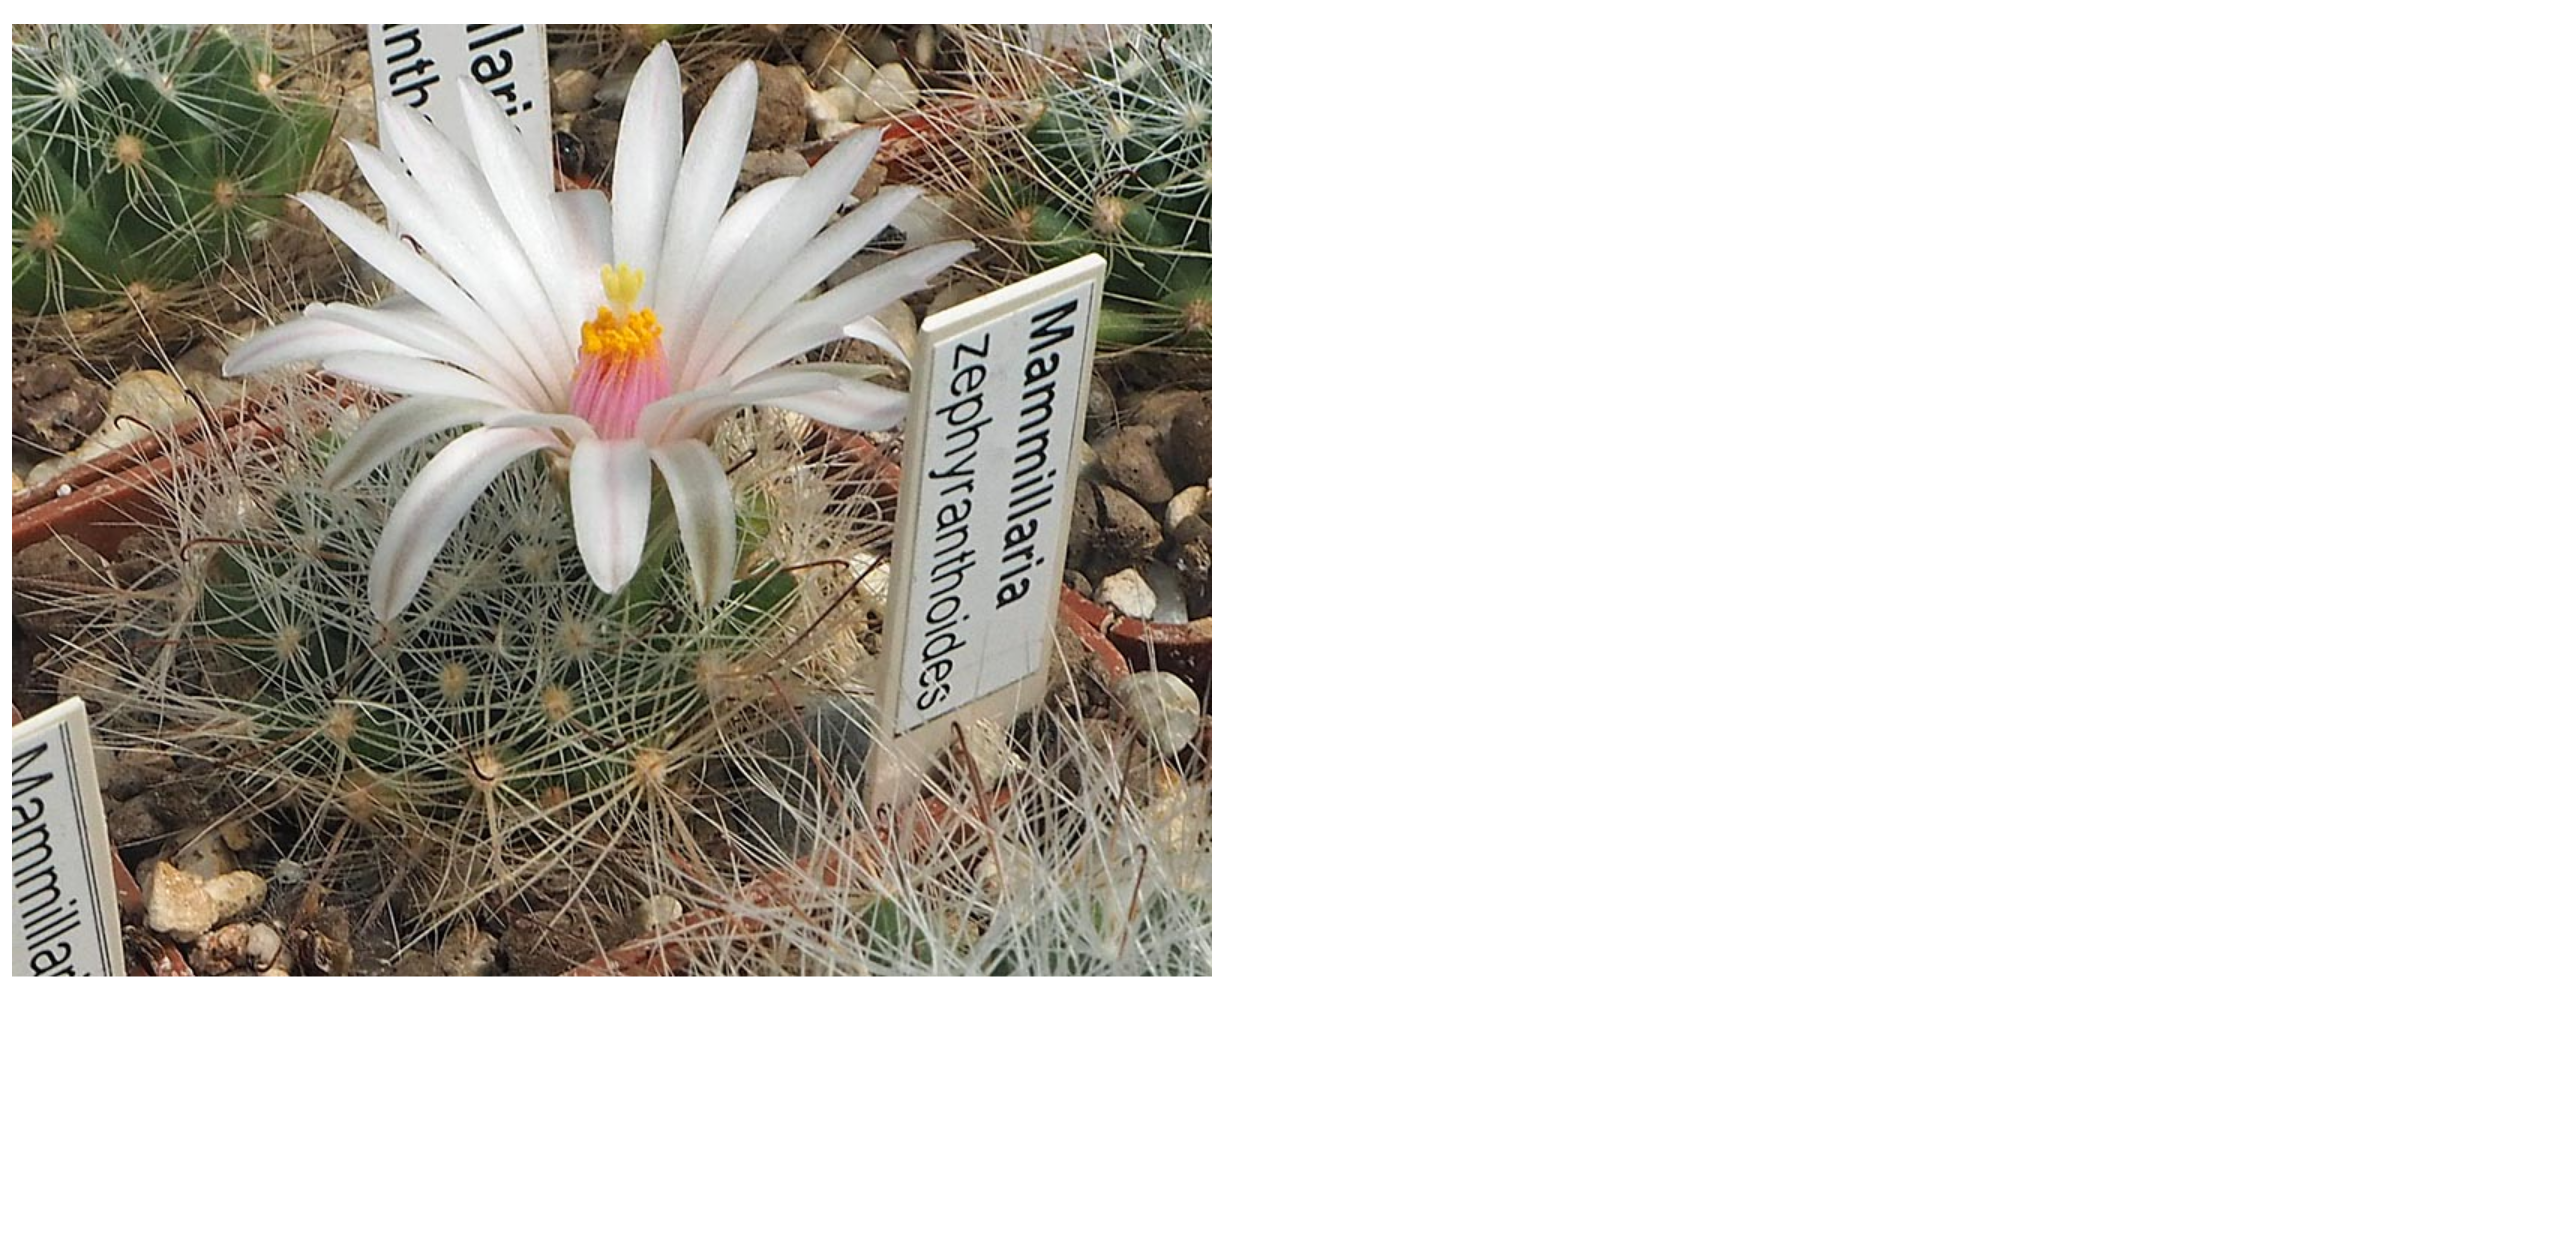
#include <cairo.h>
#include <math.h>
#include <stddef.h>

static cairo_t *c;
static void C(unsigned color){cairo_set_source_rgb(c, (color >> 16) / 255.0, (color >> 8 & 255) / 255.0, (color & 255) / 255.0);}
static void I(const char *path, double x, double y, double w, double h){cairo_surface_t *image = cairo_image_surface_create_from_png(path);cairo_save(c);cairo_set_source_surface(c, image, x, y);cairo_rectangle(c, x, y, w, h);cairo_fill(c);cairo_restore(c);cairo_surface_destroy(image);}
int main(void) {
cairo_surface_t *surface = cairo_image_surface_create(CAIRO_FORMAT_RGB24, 2557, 1242);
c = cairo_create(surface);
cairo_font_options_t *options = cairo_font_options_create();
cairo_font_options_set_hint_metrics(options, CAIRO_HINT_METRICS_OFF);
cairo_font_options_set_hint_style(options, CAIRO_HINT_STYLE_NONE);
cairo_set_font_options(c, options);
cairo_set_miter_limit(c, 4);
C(0xffffff);
cairo_paint(c);
I("1.png",12,24,1200,953);
cairo_surface_write_to_png(surface, "o.png");
cairo_font_options_destroy(options);
cairo_destroy(c);
cairo_surface_destroy(surface);
return 0;
}
